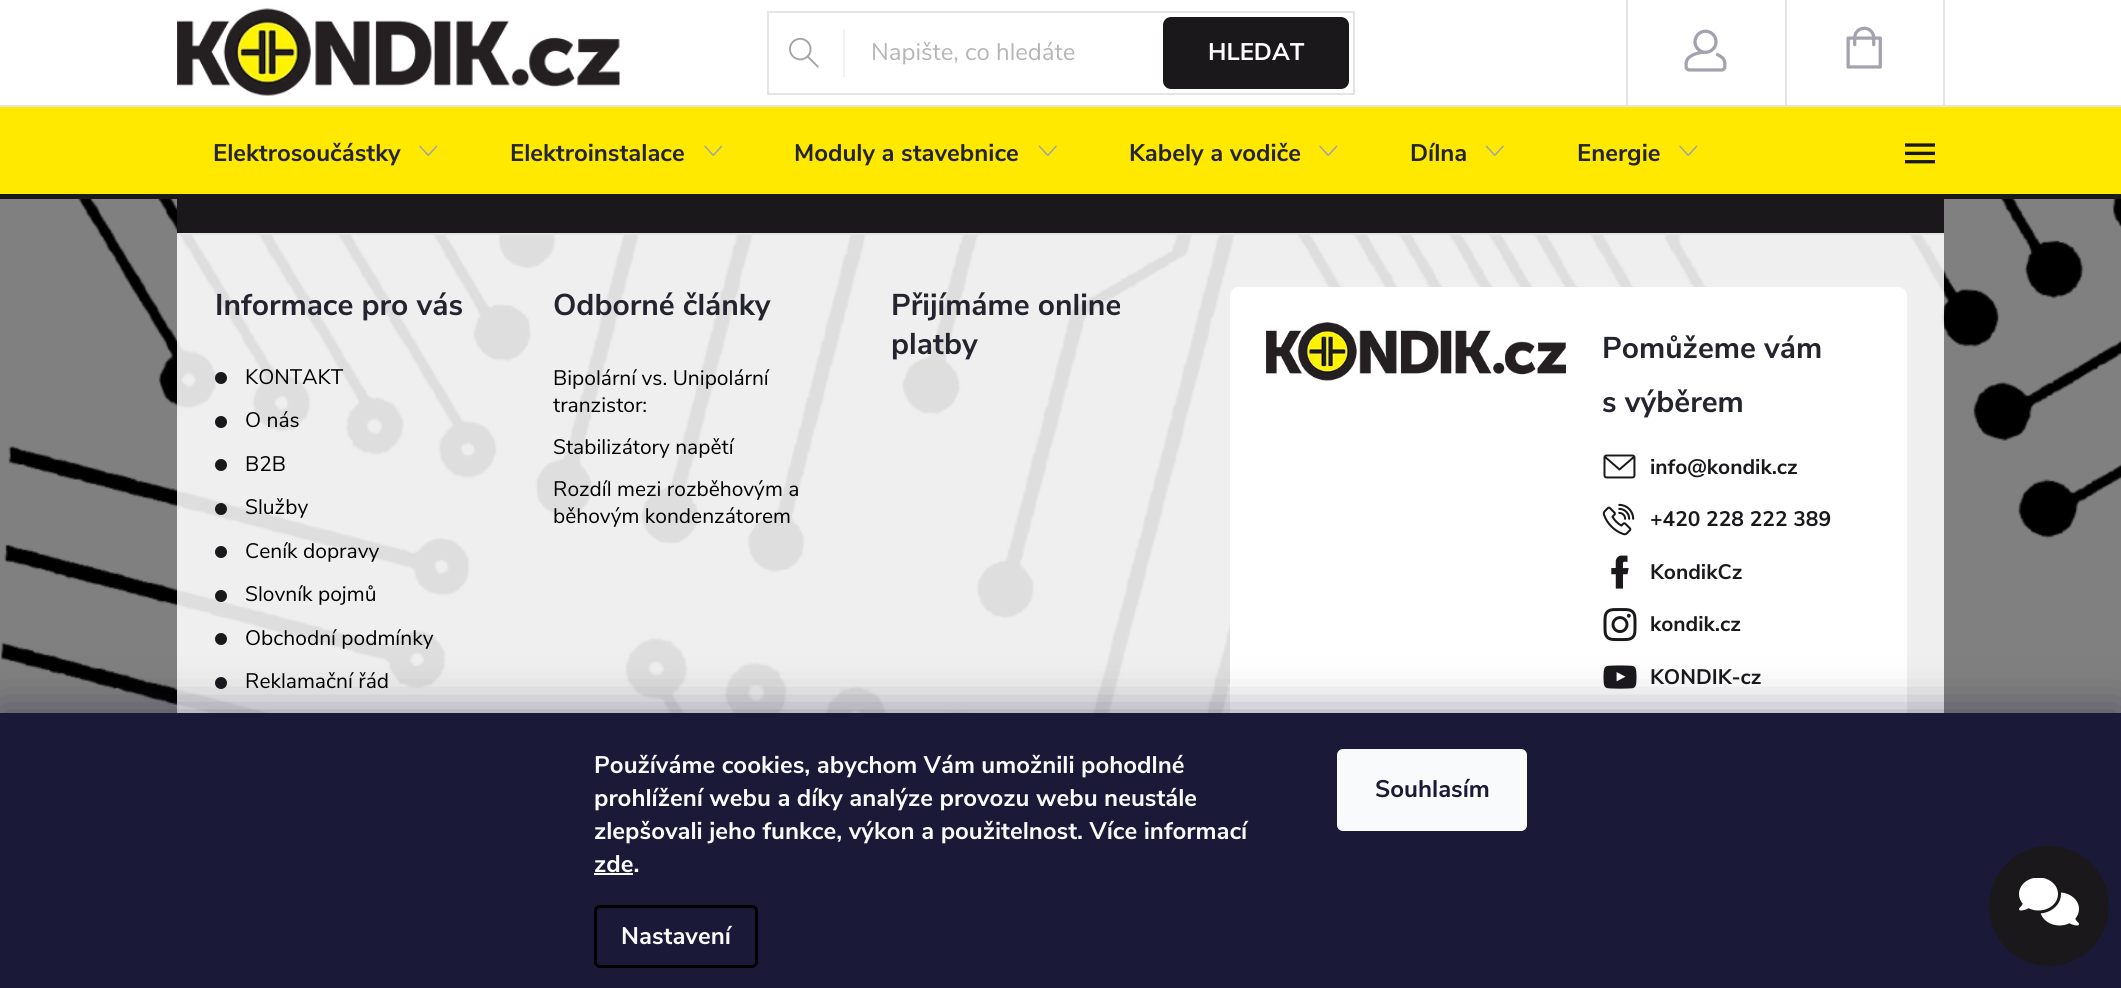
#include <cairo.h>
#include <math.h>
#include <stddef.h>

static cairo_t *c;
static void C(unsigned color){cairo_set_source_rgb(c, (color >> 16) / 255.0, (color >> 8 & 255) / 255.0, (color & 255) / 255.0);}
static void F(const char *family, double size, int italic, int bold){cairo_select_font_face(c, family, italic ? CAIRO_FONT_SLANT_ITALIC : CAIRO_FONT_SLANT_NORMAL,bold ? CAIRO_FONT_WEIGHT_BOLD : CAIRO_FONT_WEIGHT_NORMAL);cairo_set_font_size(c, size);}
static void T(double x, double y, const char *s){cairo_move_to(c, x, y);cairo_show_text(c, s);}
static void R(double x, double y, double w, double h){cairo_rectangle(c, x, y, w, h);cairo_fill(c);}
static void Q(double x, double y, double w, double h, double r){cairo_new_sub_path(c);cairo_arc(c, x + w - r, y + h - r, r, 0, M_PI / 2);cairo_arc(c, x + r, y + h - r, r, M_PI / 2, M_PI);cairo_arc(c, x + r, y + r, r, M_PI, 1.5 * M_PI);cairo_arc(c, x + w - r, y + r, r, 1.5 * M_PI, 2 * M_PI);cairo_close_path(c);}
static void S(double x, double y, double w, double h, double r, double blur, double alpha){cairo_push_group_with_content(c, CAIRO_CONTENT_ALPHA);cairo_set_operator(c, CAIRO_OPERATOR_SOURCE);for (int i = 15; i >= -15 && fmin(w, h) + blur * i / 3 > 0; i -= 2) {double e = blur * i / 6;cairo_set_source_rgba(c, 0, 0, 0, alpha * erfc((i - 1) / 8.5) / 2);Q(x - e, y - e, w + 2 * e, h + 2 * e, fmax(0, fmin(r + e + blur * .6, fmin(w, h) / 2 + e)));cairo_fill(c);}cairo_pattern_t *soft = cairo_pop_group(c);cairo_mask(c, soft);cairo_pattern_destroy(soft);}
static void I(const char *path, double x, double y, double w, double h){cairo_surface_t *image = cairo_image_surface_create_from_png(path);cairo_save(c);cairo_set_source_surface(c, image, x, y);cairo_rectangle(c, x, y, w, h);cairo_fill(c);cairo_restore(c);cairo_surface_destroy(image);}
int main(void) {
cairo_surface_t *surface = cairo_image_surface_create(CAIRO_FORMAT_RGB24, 2121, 988);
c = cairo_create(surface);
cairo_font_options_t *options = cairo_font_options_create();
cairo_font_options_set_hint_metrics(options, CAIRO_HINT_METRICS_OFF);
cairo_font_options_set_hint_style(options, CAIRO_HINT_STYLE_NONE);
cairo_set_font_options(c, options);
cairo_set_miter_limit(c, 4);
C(0x808080);
cairo_paint(c);
C(0xffffff);
R(0,0,2121,105);
I("1.png",177,8,443,88);
cairo_rectangle(c,768,12,586,82);
C(0xe4e4e4);
cairo_stroke(c);
C(0xf1f1f1);
R(843,29,2,48);
I("2.png",789,37,30,31);
F("Nunito Sans",24,0,0);
C(0xb6b6b6);
T(871,60,"Napište, co hledáte");
C(0x1a181b);
Q(1164,18,184,70,7);
cairo_fill_preserve(c);
cairo_stroke(c);
F("Nunito Sans",24,0,1);
C(0xffffff);
T(1208,60,"HLEDAT");
C(0xe4e4e4);
R(1626,0,2,105);
I("3.png",1684,29,43,43);
R(1943,0,2,105);
R(1785,0,2,105);
I("4.png",1846,26,36,43);
C(0xffe900);
R(0,107,2121,87);
C(0x24242e);
T(213,161,"Elektrosoučástky");
I("5.png",419,145,19,12);
T(510,161,"Elektroinstalace");
I("5.png",704,145,19,12);
T(794,161,"Moduly a stavebnice");
I("6.png",1038,145,19,12);
T(1129,161,"Kabely a vodiče");
I("5.png",1319,145,19,12);
T(1410,161,"Dílna");
I("6.png",1485,145,19,12);
T(1577,161,"Energie");
I("5.png",1679,145,19,12);
I("7.png",1905,143,30,21);
C(0xe4e4e4);
R(0,105,2121,2);
C(0x1b181a);
R(0,194,2121,5);
I("8.png",1,199,2120,514);
C(0x1a181b);
R(177,199,1767,34);
cairo_set_source_rgba(c,1,1,1,0.87);
R(177,235,1767,478);
C(0xe4e4e4);
R(177,233,1767,2);
F("Nunito Sans",30,0,1);
C(0x24242e);
T(215,315,"Informace pro vás");
C(0x1a181b);
cairo_new_path(c);
cairo_arc(c,221,378,6,0,2 * M_PI);
cairo_fill(c);
F("Nunito Sans",21,0,0);
C(0x000000);
T(245,384,"KONTAKT");
C(0x1a181b);
cairo_new_path(c);
cairo_arc(c,221,422,6,0,2 * M_PI);
cairo_fill(c);
C(0x000000);
T(245,427,"O nás");
C(0x1a181b);
cairo_new_path(c);
cairo_arc(c,221,465,6,0,2 * M_PI);
cairo_fill(c);
C(0x000000);
T(245,471,"B2B");
C(0x1a181b);
cairo_new_path(c);
cairo_arc(c,221,509,6,0,2 * M_PI);
cairo_fill(c);
C(0x000000);
T(245,514,"Služby");
C(0x1a181b);
cairo_new_path(c);
cairo_arc(c,221,552,6,0,2 * M_PI);
cairo_fill(c);
C(0x000000);
T(245,558,"Ceník dopravy");
C(0x1a181b);
cairo_new_path(c);
cairo_arc(c,221,596,6,0,2 * M_PI);
cairo_fill(c);
C(0x000000);
T(245,601,"Slovník pojmů");
C(0x1a181b);
cairo_new_path(c);
cairo_arc(c,221,639,6,0,2 * M_PI);
cairo_fill(c);
C(0x000000);
T(245,645,"Obchodní podmínky");
C(0x1a181b);
cairo_new_path(c);
cairo_arc(c,221,683,6,0,2 * M_PI);
cairo_fill(c);
C(0x000000);
T(245,688,"Reklamační řád");
F("Nunito Sans",30,0,1);
C(0x24242e);
T(553,315,"Odborné články");
F("Nunito Sans",21,0,0);
C(0x000000);
T(553,385,"Bipolární vs. Unipolární");
T(553,412,"tranzistor:");
T(553,454,"Stabilizátory napětí");
T(553,496,"Rozdíl mezi rozběhovým a");
T(553,523,"běhovým kondenzátorem");
F("Nunito Sans",30,0,1);
C(0x24242e);
T(891,315,"Přijímáme online");
T(891,354,"platby");
C(0xffffff);
Q(1230,287,677,466,9);
cairo_fill(c);
I("9.png",1266,322,300,59);
C(0x24242e);
T(1602,358,"Pomůžeme vám");
T(1602,412,"s výběrem");
I("10.png",1603,454,33,25);
F("Nunito Sans",21,0,1);
C(0x1a181b);
T(1650,474,"info@kondik.cz");
I("11.png",1602,503,33,33);
T(1650,526,"+420 228 222 389");
I("12.png",1611,555,18,34);
T(1650,579,"KondikCz");
I("13.png",1603,608,34,34);
T(1650,631,"kondik.cz");
I("14.png",1603,665,34,24);
T(1650,684,"KONDIK-cz");
C(0x1b1939);
S(0,713,2121,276,0,22.5,.5);
C(0x1a1937);
R(0,713,2121,275);
F("Nunito Sans",24,0,1);
C(0xf8fafb);
T(594,773,"Používáme cookies, abychom Vám umožnili pohodlné");
T(594,806,"prohlížení webu a díky analýze provozu webu neustále");
T(594,839,"zlepšovali jeho funkce, výkon a použitelnost. Více informací");
T(594,872,"zde.");
R(594,873,39,2);
Q(595.5,906.5,161,60,4.5);
C(0x000000);
cairo_set_line_width(c,3);
cairo_stroke(c);
C(0xf8fafb);
T(621,944,"Nastavení");
Q(1337,749,190,82,6);
cairo_fill(c);
C(0x1a1937);
T(1375,797,"Souhlasím");
C(0x1a181b);
cairo_new_path(c);
cairo_arc(c,2049,906,57,0,2 * M_PI);
cairo_fill_preserve(c);
cairo_set_line_width(c,6);
cairo_stroke(c);
I("15.png",2019,878,60,48);
cairo_surface_write_to_png(surface, "o.png");
cairo_font_options_destroy(options);
cairo_destroy(c);
cairo_surface_destroy(surface);
return 0;
}
